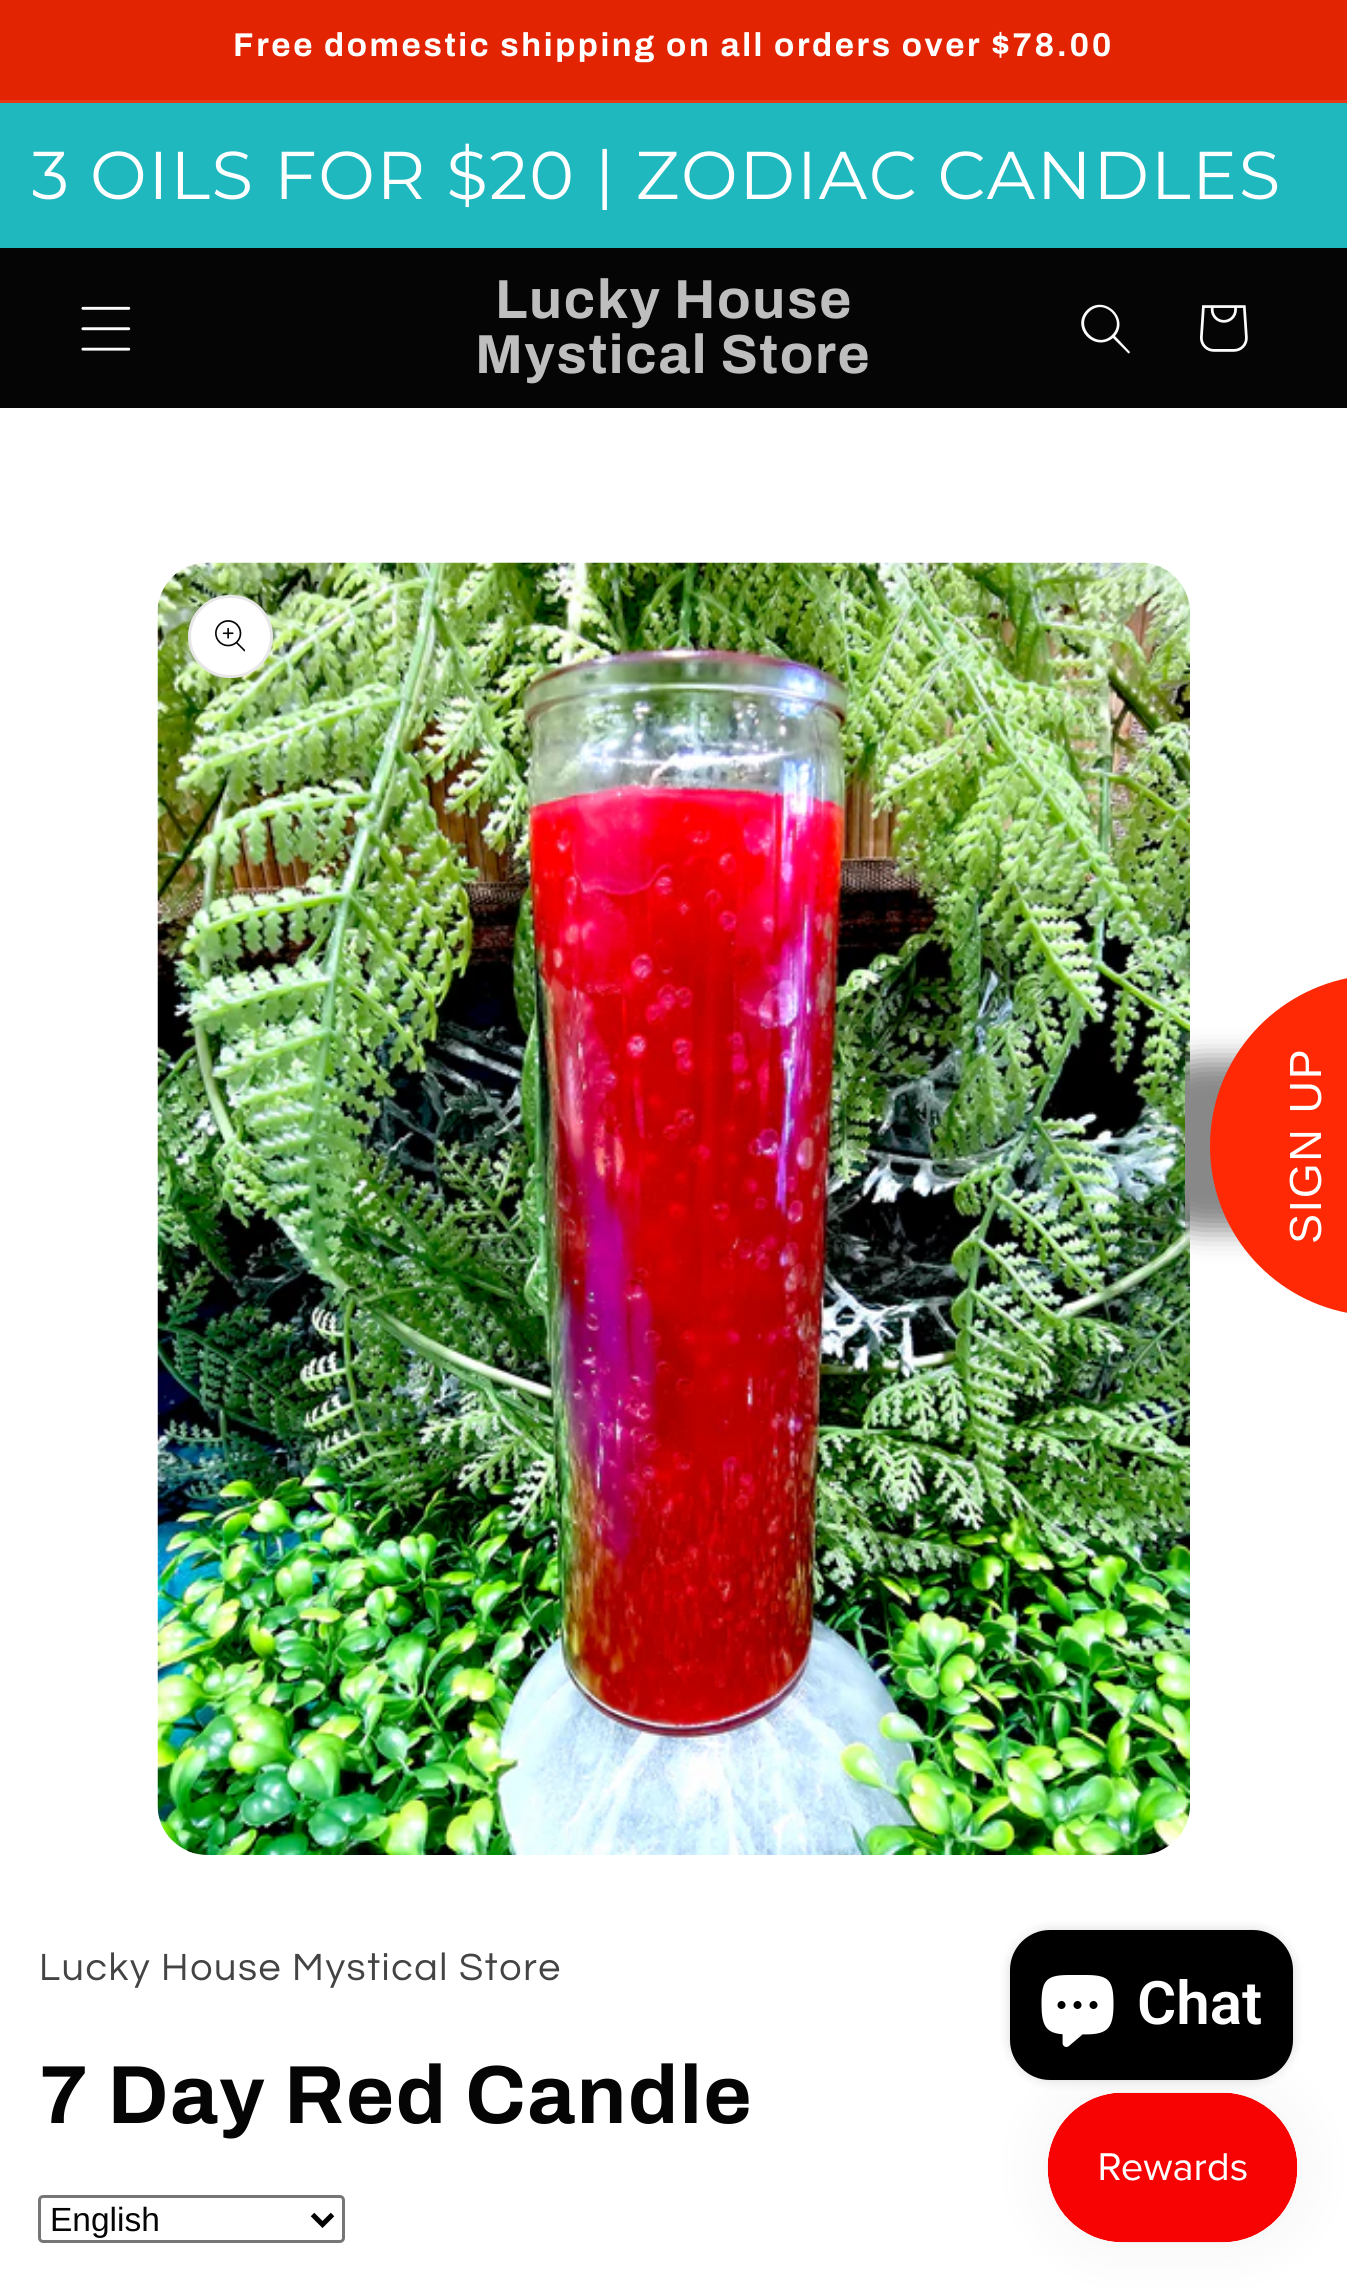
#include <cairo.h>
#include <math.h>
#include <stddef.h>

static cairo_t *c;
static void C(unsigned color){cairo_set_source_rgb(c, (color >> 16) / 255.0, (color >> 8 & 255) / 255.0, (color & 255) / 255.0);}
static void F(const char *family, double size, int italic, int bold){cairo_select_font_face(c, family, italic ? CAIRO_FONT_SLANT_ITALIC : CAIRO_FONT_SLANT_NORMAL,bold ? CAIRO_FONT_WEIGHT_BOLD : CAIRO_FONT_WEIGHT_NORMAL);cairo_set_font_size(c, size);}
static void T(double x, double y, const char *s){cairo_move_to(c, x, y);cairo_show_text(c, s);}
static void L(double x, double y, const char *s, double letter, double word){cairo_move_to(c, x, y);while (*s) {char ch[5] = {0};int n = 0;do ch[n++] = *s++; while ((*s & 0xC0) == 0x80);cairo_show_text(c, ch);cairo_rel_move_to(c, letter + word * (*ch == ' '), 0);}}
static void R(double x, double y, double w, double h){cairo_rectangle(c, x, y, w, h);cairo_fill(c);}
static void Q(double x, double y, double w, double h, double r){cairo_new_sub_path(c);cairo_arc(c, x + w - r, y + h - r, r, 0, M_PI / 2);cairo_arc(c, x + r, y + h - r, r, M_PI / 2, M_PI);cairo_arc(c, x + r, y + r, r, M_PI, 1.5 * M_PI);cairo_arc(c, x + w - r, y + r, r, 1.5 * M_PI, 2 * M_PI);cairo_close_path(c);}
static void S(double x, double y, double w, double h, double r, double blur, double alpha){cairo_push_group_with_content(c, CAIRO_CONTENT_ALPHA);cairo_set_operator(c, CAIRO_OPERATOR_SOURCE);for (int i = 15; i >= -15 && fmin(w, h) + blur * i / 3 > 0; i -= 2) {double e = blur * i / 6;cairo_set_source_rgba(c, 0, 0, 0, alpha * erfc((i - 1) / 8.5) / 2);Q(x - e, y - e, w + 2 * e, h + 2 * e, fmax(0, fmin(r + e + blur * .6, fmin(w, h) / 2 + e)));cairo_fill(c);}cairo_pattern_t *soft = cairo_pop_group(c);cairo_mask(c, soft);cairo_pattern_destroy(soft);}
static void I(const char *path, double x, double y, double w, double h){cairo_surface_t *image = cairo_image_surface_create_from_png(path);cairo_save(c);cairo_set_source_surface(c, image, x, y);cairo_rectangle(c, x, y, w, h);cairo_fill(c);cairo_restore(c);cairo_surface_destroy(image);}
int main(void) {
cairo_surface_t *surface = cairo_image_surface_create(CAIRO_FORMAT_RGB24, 1347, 2292);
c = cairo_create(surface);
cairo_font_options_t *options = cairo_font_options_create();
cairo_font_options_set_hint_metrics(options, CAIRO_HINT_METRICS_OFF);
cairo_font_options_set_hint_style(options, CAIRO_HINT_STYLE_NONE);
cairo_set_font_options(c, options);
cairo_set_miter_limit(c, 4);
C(0xffffff);
cairo_paint(c);
C(0xe32402);
R(0,0,1347,100);
C(0xe53616);
R(0,100,1347,3);
F("Archivo",33,0,1);
C(0xffffff);
L(233,56,"Free domestic shipping on all orders over $78.00",2.6,0);
C(0x1fb8bf);
R(0,103,1347,145);
cairo_save(c);
cairo_rectangle(c,33,143,1282,67);
cairo_clip(c);
F("Montserrat",67.5,0,0);
C(0xffffff);
L(31,199,"3 OILS FOR $20 | ZODIAC CANDLES",1.6,0);
cairo_restore(c);
C(0x050505);
R(0,248,1347,160);
I("1.png",81,306,50,45);
F("Archivo",55,0,1);
C(0xbebebe);
L(495,318,"Lucky House",1.6,0);
L(475,373,"Mystical Store",1.6,0);
C(0xfcfcfc);
cairo_set_fill_rule(c,CAIRO_FILL_RULE_EVEN_ODD);
cairo_new_path(c);
cairo_move_to(c,1112,335);
cairo_curve_to(c,1097,350,1074,327,1089,312);
cairo_curve_to(c,1104,297,1127,320,1112,335);
cairo_move_to(c,1113,338);
cairo_curve_to(c,1094,353,1070,327,1087,310);
cairo_curve_to(c,1104,294,1130,318,1115,336);
cairo_line_to(c,1130,352);
cairo_curve_to(c,1130,353,1128,354,1128,353);
cairo_close_path(c);
cairo_fill(c);
I("2.png",1200,305,48,47);
I("3.png",157,562,1033,1293);
cairo_save(c);
cairo_set_fill_rule(c,CAIRO_FILL_RULE_WINDING);
cairo_new_path(c);
cairo_move_to(c,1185,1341);
cairo_line_to(c,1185,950);
cairo_line_to(c,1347.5,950);
cairo_line_to(c,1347.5,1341);
cairo_close_path(c);
cairo_clip(c);
C(0x888888);
S(1125,1060,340,170,170,14,1);
cairo_restore(c);
C(0xff2905);
cairo_set_fill_rule(c,CAIRO_FILL_RULE_WINDING);
cairo_new_path(c);
cairo_move_to(c,1210,1146);
cairo_curve_to(c,1210,1063,1269,994,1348,978);
cairo_line_to(c,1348,1313);
cairo_curve_to(c,1269,1298,1210,1229,1210,1146);
cairo_close_path(c);
cairo_fill(c);
F("Liberation Sans",45,0,0);
C(0xffffff);
cairo_save(c);
cairo_translate(c,1321,1244);
cairo_rotate(c,-90 * M_PI / 180);
L(0,0,"SIGN UP",1.6,0);
cairo_restore(c);
Q(188,595,85,83,41.5);
cairo_fill(c);
Q(189.5,596.5,82,80,40);
cairo_set_source_rgba(c,0.02,0.02,0.02,0.1);
cairo_set_line_width(c,3);
cairo_stroke(c);
I("4.png",215,620,30,32);
F("Questrial",39.4,0,0);
C(0x444444);
L(39,1980,"Lucky House Mystical Store",1.6,0);
F("Archivo",82.5,0,1);
C(0x050505);
L(39,2123,"7 Day Red Candle",1.6,0);
C(0x000000);
S(1010,1930,283,150,40,6,.15);
C(0x000000);
Q(1010,1930,283,150,40);
cairo_fill(c);
I("5.png",1041,1975,73,72);
F("Roboto SemiBold",60,0,0);
C(0xffffff);
T(1137,2024,"Chat");
Q(39.5,2196.5,304,45,3.5);
C(0x767676);
cairo_stroke(c);
cairo_new_path(c);
cairo_move_to(c,312.5,2214.5);
cairo_line_to(c,322.5,2224.5);
cairo_line_to(c,332.5,2214.5);
C(0x000000);
cairo_set_line_width(c,5);
cairo_stroke(c);
F("Liberation Sans",33.5,0,0);
C(0x050505);
T(50,2231,"English");
C(0x000000);
S(1048,2093,250,150,75,31,.05);
I("6.png",1047,2092,251,151);
cairo_surface_write_to_png(surface, "o.png");
cairo_font_options_destroy(options);
cairo_destroy(c);
cairo_surface_destroy(surface);
return 0;
}
